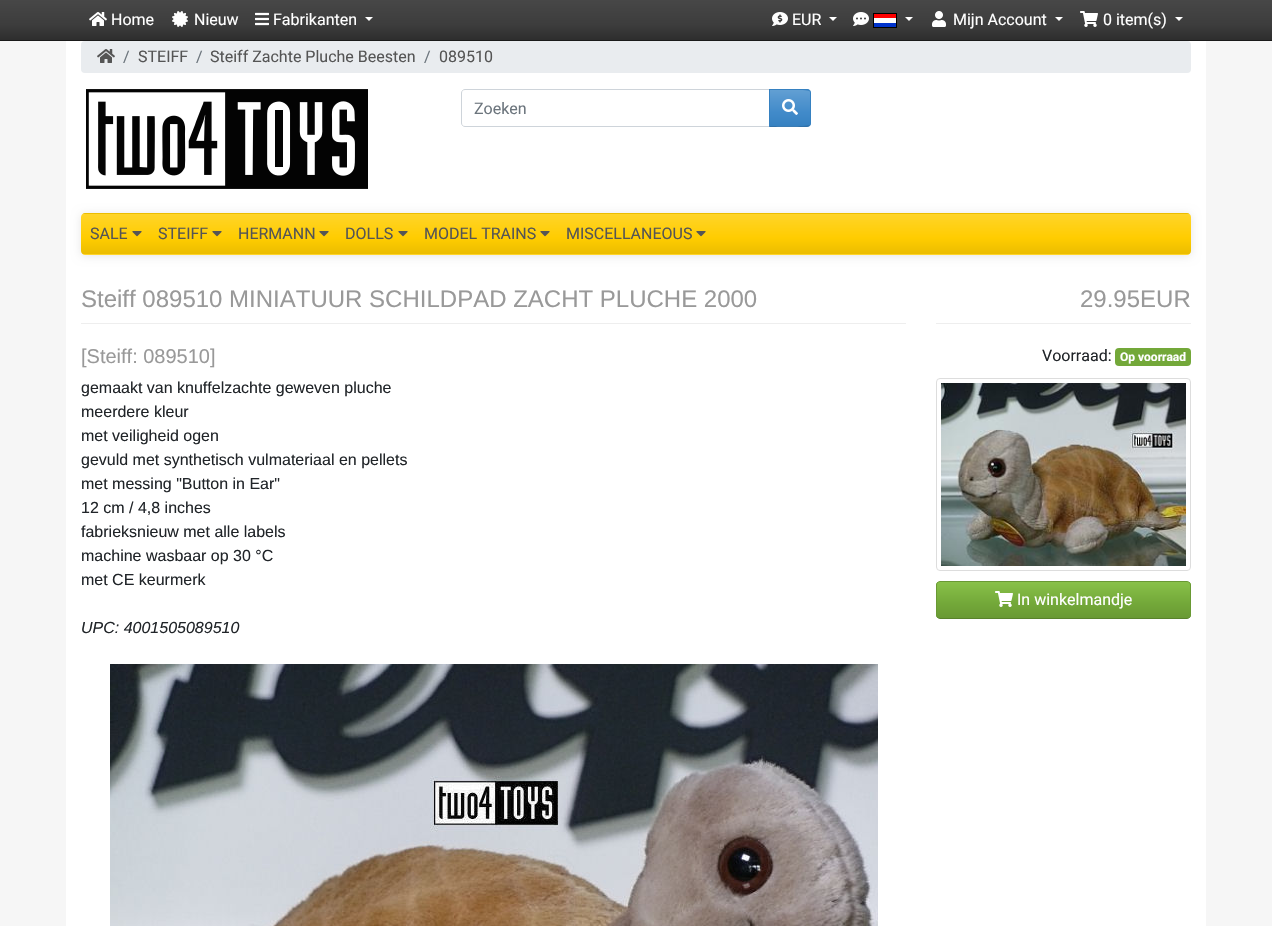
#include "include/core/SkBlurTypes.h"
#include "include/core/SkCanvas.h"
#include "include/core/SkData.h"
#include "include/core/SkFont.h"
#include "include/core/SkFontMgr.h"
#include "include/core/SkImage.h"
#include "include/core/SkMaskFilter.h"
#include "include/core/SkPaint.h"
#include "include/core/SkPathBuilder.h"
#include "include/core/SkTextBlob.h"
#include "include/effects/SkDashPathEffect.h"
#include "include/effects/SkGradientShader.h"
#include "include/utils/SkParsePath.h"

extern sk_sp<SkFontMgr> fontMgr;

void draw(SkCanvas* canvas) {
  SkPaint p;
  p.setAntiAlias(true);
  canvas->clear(SkColorSetRGB(246, 246, 246));
  {
    const SkColor colors[] = {SkColorSetRGB(71, 71, 71), SkColorSetRGB(61, 61, 61), SkColorSetRGB(46, 46, 46)};
    const float stops[] = {0, 0.6f, 1};
    const SkPoint ends[] = {{636, 0}, {636, 40}};
    p.setShader(SkGradientShader::MakeLinear(ends, colors, stops, 3, SkTileMode::kClamp));
    p.setAlpha(255);
  }
  canvas->drawRect(SkRect::MakeLTRB(0, 0, 1272, 40), p);
  p.setShader(nullptr);
  p.setColor(SkColorSetRGB(26, 26, 26));
  canvas->drawRect(SkRect::MakeLTRB(0, 40, 1272, 41), p);
  canvas->drawImageRect(SkImages::DeferredFromEncodedData(SkData::MakeFromFileName("images/1.png")), SkRect::MakeLTRB(89, 12, 107, 26), SkSamplingOptions());
  canvas->drawImageRect(SkImages::DeferredFromEncodedData(SkData::MakeFromFileName("images/2.png")), SkRect::MakeLTRB(172, 11, 188, 27), SkSamplingOptions());
  canvas->drawImageRect(SkImages::DeferredFromEncodedData(SkData::MakeFromFileName("images/3.png")), SkRect::MakeLTRB(255, 12, 269, 26), SkSamplingOptions());
  p.setColor(SK_ColorWHITE);
  canvas->drawPath(SkPathBuilder().moveTo(365, 17).lineTo(373, 17).lineTo(369, 21).close().detach(), p);
  canvas->drawImageRect(SkImages::DeferredFromEncodedData(SkData::MakeFromFileName("images/4.png")), SkRect::MakeLTRB(772, 12, 788, 26), SkSamplingOptions());
  canvas->drawPath(SkPathBuilder().moveTo(829, 17).lineTo(837, 17).lineTo(833, 21).close().detach(), p);
  canvas->drawImageRect(SkImages::DeferredFromEncodedData(SkData::MakeFromFileName("images/5.png")), SkRect::MakeLTRB(853, 12, 869, 26), SkSamplingOptions());
  canvas->drawImageRect(SkImages::DeferredFromEncodedData(SkData::MakeFromFileName("images/6.png")), SkRect::MakeLTRB(873, 13, 897, 28), SkSamplingOptions());
  canvas->drawPath(SkPathBuilder().moveTo(905, 17).lineTo(913, 17).lineTo(909, 21).close().detach(), p);
  canvas->drawImageRect(SkImages::DeferredFromEncodedData(SkData::MakeFromFileName("images/7.png")), SkRect::MakeLTRB(932, 11, 946, 27), SkSamplingOptions());
  canvas->drawPath(SkPathBuilder().moveTo(1055, 17).lineTo(1063, 17).lineTo(1059, 21).close().detach(), p);
  canvas->drawImageRect(SkImages::DeferredFromEncodedData(SkData::MakeFromFileName("images/8.png")), SkRect::MakeLTRB(1080, 11, 1098, 27), SkSamplingOptions());
  canvas->drawPath(SkPathBuilder().moveTo(1175, 17).lineTo(1183, 17).lineTo(1179, 21).close().detach(), p);
  canvas->drawRect(SkRect::MakeLTRB(66, 41, 1206, 926), p);
  p.setColor(SkColorSetRGB(233, 236, 239));
  canvas->drawRoundRect(SkRect::MakeLTRB(81, 41, 1191, 73), 4, 4, p);
  canvas->drawImageRect(SkImages::DeferredFromEncodedData(SkData::MakeFromFileName("images/9.png")), SkRect::MakeLTRB(97, 49, 115, 63), SkSamplingOptions());
  canvas->drawImageRect(SkImages::DeferredFromEncodedData(SkData::MakeFromFileName("images/10.png")), SkRect::MakeLTRB(86, 89, 368, 189), SkSamplingOptions());
  p.setStyle(SkPaint::kStroke_Style);
  p.setStrokeWidth(1);
  p.setColor(SkColorSetRGB(206, 212, 218));
  canvas->drawPath(SkPathBuilder().moveTo(465, 89.5f).lineTo(769.5f, 89.5f).lineTo(769.5f, 126.5f).lineTo(465, 126.5f).cubicTo(463, 126.5f, 461.5f, 125, 461.5f, 123).lineTo(461.5f, 93).cubicTo(461.5f, 91, 463, 89.5f, 465, 89.5f).close().detach(), p);
  canvas->save();
  canvas->clipPath(SkPathBuilder().moveTo(769, 89).lineTo(807, 89).cubicTo(809, 89, 811, 91, 811, 93).lineTo(811, 123).cubicTo(811, 125, 809, 127, 807, 127).lineTo(769, 127).close().detach(), true);
  p.setStyle(SkPaint::kFill_Style);
  {
    const SkColor colors[] = {SkColorSetRGB(98, 159, 211), SkColorSetRGB(66, 139, 202), SkColorSetRGB(54, 129, 193)};
    const float stops[] = {0, 0.6f, 1};
    const SkPoint ends[] = {{790, 54}, {790, 90}};
    p.setShader(SkGradientShader::MakeLinear(ends, colors, stops, 3, SkTileMode::kClamp));
    p.setAlpha(255);
  }
  canvas->drawRect(SkRect::MakeLTRB(769, 89, 811, 90), p);
  {
    const SkColor colors[] = {SkColorSetRGB(98, 159, 211), SkColorSetRGB(66, 139, 202), SkColorSetRGB(54, 129, 193)};
    const float stops[] = {0, 0.6f, 1};
    const SkPoint ends[] = {{790, 90}, {790, 126}};
    p.setShader(SkGradientShader::MakeLinear(ends, colors, stops, 3, SkTileMode::kClamp));
    p.setAlpha(255);
  }
  canvas->drawRect(SkRect::MakeLTRB(770, 90, 811, 126), p);
  {
    const SkColor colors[] = {SkColorSetRGB(98, 159, 211), SkColorSetRGB(66, 139, 202), SkColorSetRGB(54, 129, 193)};
    const float stops[] = {0, 0.6f, 1};
    const SkPoint ends[] = {{790, 126}, {790, 162}};
    p.setShader(SkGradientShader::MakeLinear(ends, colors, stops, 3, SkTileMode::kClamp));
    p.setAlpha(255);
  }
  canvas->drawRect(SkRect::MakeLTRB(769, 126, 811, 127), p);
  canvas->restore();
  p.setShader(nullptr);
  p.setColor(SkColorSetRGB(54, 129, 193));
  canvas->drawPath(SkPathBuilder().moveTo(769, 89).lineTo(770, 90).cubicTo(775, 90, 807, 89, 809, 91).lineTo(810, 90).lineTo(807, 89).close().detach(), p);
  canvas->drawPath(SkPathBuilder().moveTo(811, 123).lineTo(811, 93).cubicTo(811, 92, 810.5f, 91, 810, 90).lineTo(809, 91).cubicTo(810, 91, 810, 92, 810, 93).lineTo(810, 123).cubicTo(810, 124, 810, 125, 809, 125).lineTo(810, 126).cubicTo(810.5f, 125, 811, 124, 811, 123).close().detach(), p);
  p.setColor(SkColorSetRGB(48, 113, 169));
  canvas->drawPath(SkPathBuilder().moveTo(807, 127).lineTo(810, 126).lineTo(809, 125).cubicTo(807, 127, 775, 126, 770, 126).lineTo(769, 127).close().detach(), p);
  p.setColor(SkColorSetRGB(54, 129, 193));
  canvas->drawPath(SkPathBuilder().moveTo(769, 89).lineTo(769, 127).lineTo(770, 126).lineTo(770, 90).close().detach(), p);
  canvas->drawImageRect(SkImages::DeferredFromEncodedData(SkData::MakeFromFileName("images/11.png")), SkRect::MakeLTRB(782, 99, 798, 115), SkSamplingOptions());
  p.setColor(SkColorSetARGB(26, 0, 0, 0));
  p.setMaskFilter(SkMaskFilter::MakeBlur(kNormal_SkBlurStyle, 5));
  canvas->drawRoundRect(SkRect::MakeLTRB(81, 214, 1191, 256), 4, 4, p);
  p.setMaskFilter(nullptr);
  canvas->save();
  canvas->clipPath(SkPathBuilder().moveTo(85, 213).lineTo(1187, 213).cubicTo(1189, 213, 1191, 215, 1191, 217).lineTo(1191, 251).cubicTo(1191, 253, 1189, 255, 1187, 255).lineTo(85, 255).cubicTo(83, 255, 81, 253, 81, 251).lineTo(81, 217).cubicTo(81, 215, 83, 213, 85, 213).close().detach(), true);
  {
    const SkColor colors[] = {SkColorSetRGB(255, 212, 41), SkColorSetRGB(255, 204, 0), SkColorSetRGB(235, 188, 0)};
    const float stops[] = {0, 0.6f, 1};
    const SkPoint ends[] = {{636, 174}, {636, 214}};
    p.setShader(SkGradientShader::MakeLinear(ends, colors, stops, 3, SkTileMode::kClamp));
    p.setAlpha(255);
  }
  canvas->drawRect(SkRect::MakeLTRB(81, 213, 1191, 214), p);
  {
    const SkColor colors[] = {SkColorSetRGB(255, 212, 41), SkColorSetRGB(255, 204, 0), SkColorSetRGB(235, 188, 0)};
    const float stops[] = {0, 0.6f, 1};
    const SkPoint ends[] = {{636, 214}, {636, 254}};
    p.setShader(SkGradientShader::MakeLinear(ends, colors, stops, 3, SkTileMode::kClamp));
    p.setAlpha(255);
  }
  canvas->drawRect(SkRect::MakeLTRB(81, 214, 1191, 254), p);
  {
    const SkColor colors[] = {SkColorSetRGB(255, 212, 41), SkColorSetRGB(255, 204, 0), SkColorSetRGB(235, 188, 0)};
    const float stops[] = {0, 0.6f, 1};
    const SkPoint ends[] = {{636, 254}, {636, 294}};
    p.setShader(SkGradientShader::MakeLinear(ends, colors, stops, 3, SkTileMode::kClamp));
    p.setAlpha(255);
  }
  canvas->drawRect(SkRect::MakeLTRB(81, 254, 1191, 255), p);
  canvas->restore();
  canvas->drawImageRect(SkImages::DeferredFromEncodedData(SkData::MakeFromFileName("images/12.png")), SkRect::MakeLTRB(132, 231, 142, 237), SkSamplingOptions());
  canvas->drawImageRect(SkImages::DeferredFromEncodedData(SkData::MakeFromFileName("images/12.png")), SkRect::MakeLTRB(212, 231, 222, 237), SkSamplingOptions());
  canvas->drawImageRect(SkImages::DeferredFromEncodedData(SkData::MakeFromFileName("images/12.png")), SkRect::MakeLTRB(319, 231, 329, 237), SkSamplingOptions());
  canvas->drawImageRect(SkImages::DeferredFromEncodedData(SkData::MakeFromFileName("images/12.png")), SkRect::MakeLTRB(398, 231, 408, 237), SkSamplingOptions());
  canvas->drawImageRect(SkImages::DeferredFromEncodedData(SkData::MakeFromFileName("images/12.png")), SkRect::MakeLTRB(540, 231, 550, 237), SkSamplingOptions());
  canvas->drawImageRect(SkImages::DeferredFromEncodedData(SkData::MakeFromFileName("images/12.png")), SkRect::MakeLTRB(696, 231, 706, 237), SkSamplingOptions());
  p.setShader(nullptr);
  p.setColor(SkColorSetRGB(238, 238, 238));
  canvas->drawRect(SkRect::MakeLTRB(81, 323, 906, 324), p);
  canvas->drawRect(SkRect::MakeLTRB(936, 323, 1191, 324), p);
  p.setColor(SkColorSetRGB(115, 168, 57));
  canvas->drawRoundRect(SkRect::MakeLTRB(1115, 348, 1191, 366), 4, 4, p);
  p.setStyle(SkPaint::kStroke_Style);
  p.setColor(SkColorSetRGB(221, 221, 221));
  canvas->drawRoundRect(SkRect::MakeLTRB(936.5f, 378.5f, 1190.5f, 570.5f), 3.5f, 3.5f, p);
  canvas->drawImageRect(SkImages::DeferredFromEncodedData(SkData::MakeFromFileName("images/13.png")), SkRect::MakeLTRB(941, 383, 1186, 566), SkSamplingOptions());
  canvas->save();
  canvas->clipPath(SkPathBuilder().moveTo(940, 581).lineTo(1187, 581).cubicTo(1189, 581, 1191, 583, 1191, 585).lineTo(1191, 615).cubicTo(1191, 617, 1189, 619, 1187, 619).lineTo(940, 619).cubicTo(938, 619, 936, 617, 936, 615).lineTo(936, 585).cubicTo(936, 583, 938, 581, 940, 581).close().detach(), true);
  p.setStyle(SkPaint::kFill_Style);
  {
    const SkColor colors[] = {SkColorSetRGB(136, 193, 73), SkColorSetRGB(115, 168, 57), SkColorSetRGB(105, 153, 52)};
    const float stops[] = {0, 0.6f, 1};
    const SkPoint ends[] = {{1064, 582}, {1064, 618}};
    p.setShader(SkGradientShader::MakeLinear(ends, colors, stops, 3, SkTileMode::kClamp));
    p.setAlpha(255);
  }
  canvas->drawRect(SkRect::MakeLTRB(936, 582, 1191, 618), p);
  canvas->restore();
  p.setStyle(SkPaint::kStroke_Style);
  p.setShader(nullptr);
  p.setColor(SkColorSetRGB(89, 130, 44));
  canvas->drawPath(SkPathBuilder().moveTo(1189.5f, 617.5f).cubicTo(1189, 618, 1188, 618.5f, 1187, 618.5f).lineTo(940, 618.5f).cubicTo(939, 618.5f, 938, 618, 937.5f, 617.5f).detach(), p);
  p.setColor(SkColorSetRGB(105, 153, 52));
  canvas->drawPath(SkPathBuilder().moveTo(937.5f, 617.5f).cubicTo(937, 617, 936.5f, 616, 936.5f, 615).lineTo(936.5f, 585).cubicTo(936.5f, 584, 937, 583, 937.5f, 582.5f).cubicTo(938, 582, 939, 581.5f, 940, 581.5f).lineTo(1187, 581.5f).cubicTo(1188, 581.5f, 1189, 582, 1189.5f, 582.5f).cubicTo(1190, 583, 1190.5f, 584, 1190.5f, 585).lineTo(1190.5f, 615).cubicTo(1190.5f, 616, 1190, 617, 1189.5f, 617.5f).detach(), p);
  canvas->drawImageRect(SkImages::DeferredFromEncodedData(SkData::MakeFromFileName("images/14.png")), SkRect::MakeLTRB(995, 591, 1013, 607), SkSamplingOptions());
  canvas->drawImageRect(SkImages::DeferredFromEncodedData(SkData::MakeFromFileName("images/15.png")), SkRect::MakeLTRB(110, 664, 878, 926), SkSamplingOptions());
  SkFont font1(fontMgr->matchFamilyStyle("Roboto", SkFontStyle::Normal()), 16);
  font1.setSubpixel(true);
  p.setStyle(SkPaint::kFill_Style);
  p.setColor(SK_ColorWHITE);
  canvas->drawString("Home", 111, 25, font1, p);
  canvas->drawString("Nieuw", 194, 25, font1, p);
  canvas->drawString("Fabrikanten", 273, 25, font1, p);
  canvas->drawString("EUR", 792, 25, font1, p);
  canvas->drawString("Mijn Account", 953, 25, font1, p);
  canvas->drawString("0 item(s)", 1103, 25, font1, p);
  p.setColor(SkColorSetRGB(108, 117, 125));
  canvas->drawString("/", 123, 62, font1, p);
  p.setColor(SkColorSetRGB(85, 85, 85));
  canvas->drawString("STEIFF", 138, 62, font1, p);
  p.setColor(SkColorSetRGB(108, 117, 125));
  canvas->drawString("/", 196, 62, font1, p);
  p.setColor(SkColorSetRGB(85, 85, 85));
  canvas->drawString("Steiff Zachte Pluche Beesten", 210, 62, font1, p);
  p.setColor(SkColorSetRGB(108, 117, 125));
  canvas->drawString("/", 424, 62, font1, p);
  p.setColor(SkColorSetRGB(85, 85, 85));
  canvas->drawString("089510", 439, 62, font1, p);
  p.setColor(SkColorSetRGB(108, 117, 125));
  canvas->drawString("Zoeken", 474, 114, font1, p);
  p.setColor(SkColorSetRGB(85, 85, 85));
  canvas->drawString("SALE", 90, 239, font1, p);
  canvas->drawString("STEIFF", 158, 239, font1, p);
  canvas->drawString("HERMANN", 238, 239, font1, p);
  canvas->drawString("DOLLS", 345, 239, font1, p);
  canvas->drawString("MODEL TRAINS", 424, 239, font1, p);
  canvas->drawString("MISCELLANEOUS", 566, 239, font1, p);
  SkFont font2(fontMgr->matchFamilyStyle("Liberation Sans", SkFontStyle::Normal()), 24);
  font2.setSubpixel(true);
  p.setColor(SkColorSetRGB(153, 153, 153));
  canvas->drawString("Steiff 089510 MINIATUUR SCHILDPAD ZACHT PLUCHE 2000", 81, 307, font2, p);
  canvas->drawString("29.95EUR", 1080, 307, font2, p);
  p.setColor(SkColorSetRGB(33, 37, 41));
  canvas->drawString("Voorraad:", 1042, 361, font1, p);
  SkFont font3(fontMgr->matchFamilyStyle("Roboto", SkFontStyle::Bold()), 12);
  font3.setSubpixel(true);
  p.setColor(SK_ColorWHITE);
  canvas->drawString("Op voorraad", 1120, 361, font3, p);
  canvas->drawString("In winkelmandje", 1017, 605, font1, p);
  SkFont font4(fontMgr->matchFamilyStyle("Liberation Sans", SkFontStyle::Normal()), 20);
  font4.setSubpixel(true);
  p.setColor(SkColorSetRGB(153, 153, 153));
  canvas->drawString("[Steiff: 089510]", 81, 363, font4, p);
  SkFont font5(fontMgr->matchFamilyStyle("Liberation Sans", SkFontStyle::Normal()), 16);
  font5.setSubpixel(true);
  p.setColor(SkColorSetRGB(33, 37, 41));
  canvas->drawString("gemaakt van knuffelzachte geweven pluche", 81, 393, font5, p);
  canvas->drawString("meerdere kleur", 81, 417, font5, p);
  canvas->drawString("met veiligheid ogen", 81, 441, font5, p);
  canvas->drawString("gevuld met synthetisch vulmateriaal en pellets", 81, 465, font5, p);
  canvas->drawString("met messing \"Button in Ear\"", 81, 489, font5, p);
  canvas->drawString("12 cm / 4,8 inches", 81, 513, font5, p);
  canvas->drawString("fabrieksnieuw met alle labels", 81, 537, font5, p);
  canvas->drawString("machine wasbaar op 30 °C", 81, 561, font5, p);
  canvas->drawString("met CE keurmerk", 81, 585, font5, p);
  SkFont font6(fontMgr->matchFamilyStyle("Liberation Sans", SkFontStyle::Italic()), 16);
  font6.setSubpixel(true);
  canvas->drawString("UPC: 4001505089510", 81, 633, font6, p);
}
